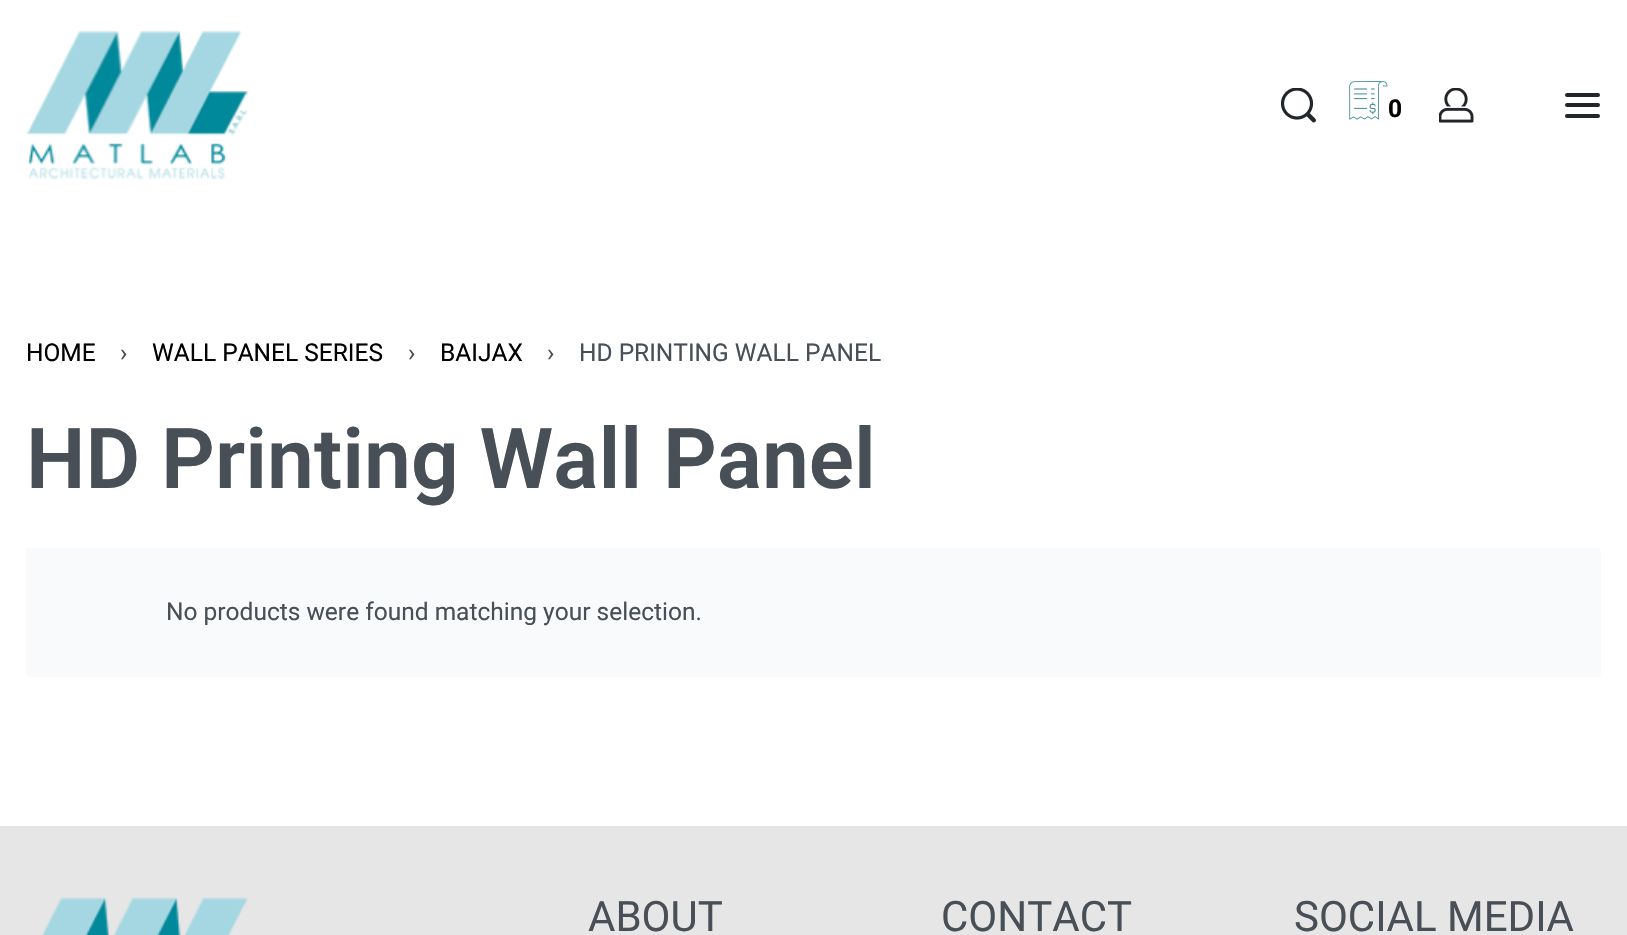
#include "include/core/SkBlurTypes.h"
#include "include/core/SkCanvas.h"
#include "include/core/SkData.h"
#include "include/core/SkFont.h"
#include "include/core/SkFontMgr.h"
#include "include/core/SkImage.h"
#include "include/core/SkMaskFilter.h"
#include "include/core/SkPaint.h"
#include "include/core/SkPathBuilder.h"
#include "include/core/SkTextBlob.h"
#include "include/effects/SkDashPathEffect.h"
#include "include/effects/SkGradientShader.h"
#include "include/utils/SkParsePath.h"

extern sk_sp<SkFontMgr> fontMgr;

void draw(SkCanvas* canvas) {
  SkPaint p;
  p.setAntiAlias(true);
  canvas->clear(SK_ColorWHITE);
  canvas->drawImageRect(SkImages::DeferredFromEncodedData(SkData::MakeFromFileName("images/1.png")), SkRect::MakeLTRB(26, 30, 249, 180), SkSamplingOptions());
  canvas->drawImageRect(SkImages::DeferredFromEncodedData(SkData::MakeFromFileName("images/2.png")), SkRect::MakeLTRB(1281, 88, 1316, 123), SkSamplingOptions());
  canvas->drawImageRect(SkImages::DeferredFromEncodedData(SkData::MakeFromFileName("images/3.png")), SkRect::MakeLTRB(1349, 81, 1388, 120), SkSamplingOptions());
  canvas->drawImageRect(SkImages::DeferredFromEncodedData(SkData::MakeFromFileName("images/4.png")), SkRect::MakeLTRB(1439, 88, 1474, 123), SkSamplingOptions());
  p.setColor(SkColorSetRGB(34, 38, 42));
  canvas->drawRoundRect(SkRect::MakeLTRB(1565, 93, 1600, 97), 2, 2, p);
  canvas->drawRoundRect(SkRect::MakeLTRB(1565, 103, 1600, 107), 2, 2, p);
  canvas->drawRoundRect(SkRect::MakeLTRB(1565, 114, 1600, 118), 2, 2, p);
  p.setColor(SkColorSetRGB(249, 250, 251));
  canvas->drawRoundRect(SkRect::MakeLTRB(26, 548, 1601, 677), 4, 4, p);
  p.setColor(SkColorSetRGB(230, 230, 230));
  canvas->drawRect(SkRect::MakeLTRB(0, 826, 1627, 935), p);
  canvas->drawImageRect(SkImages::DeferredFromEncodedData(SkData::MakeFromFileName("images/5.png")), SkRect::MakeLTRB(41, 897, 248, 935), SkSamplingOptions());
  SkFont font1(fontMgr->matchFamilyStyle("Roboto", SkFontStyle::Bold()), 24.5f);
  font1.setSubpixel(true);
  p.setColor(SK_ColorBLACK);
  canvas->drawString("0", 1388, 117, font1, p);
  SkFont font2(fontMgr->matchFamilyStyle("Roboto", SkFontStyle::Normal()), 24.5f);
  font2.setSubpixel(true);
  canvas->drawString("HOME", 26, 361, font2, p);
  p.setColor(SkColorSetRGB(72, 79, 86));
  canvas->drawString("›", 120, 361, font2, p);
  p.setColor(SK_ColorBLACK);
  canvas->drawString("WALL PANEL SERIES", 152, 361, font2, p);
  p.setColor(SkColorSetRGB(72, 79, 86));
  canvas->drawString("›", 408, 361, font2, p);
  p.setColor(SK_ColorBLACK);
  canvas->drawString("BAIJAX", 440, 361, font2, p);
  p.setColor(SkColorSetRGB(72, 79, 86));
  canvas->drawString("›", 547, 361, font2, p);
  canvas->drawString("HD PRINTING WALL PANEL", 579, 361, font2, p);
  SkFont font3(fontMgr->matchFamilyStyle("Roboto", SkFontStyle(600, SkFontStyle::kNormal_Width, SkFontStyle::kUpright_Slant)), 84);
  font3.setSubpixel(true);
  canvas->drawString("HD Printing Wall Panel", 26, 488, font3, p);
  canvas->drawString("No products were found matching your selection.", 166, 620, font2, p);
  SkFont font4(fontMgr->matchFamilyStyle("Roboto", SkFontStyle::Normal()), 42);
  font4.setSubpixel(true);
  canvas->drawString("ABOUT", 588, 931, font4, p);
  canvas->drawString("CONTACT", 941, 931, font4, p);
  canvas->drawString("SOCIAL MEDIA", 1294, 931, font4, p);
}
